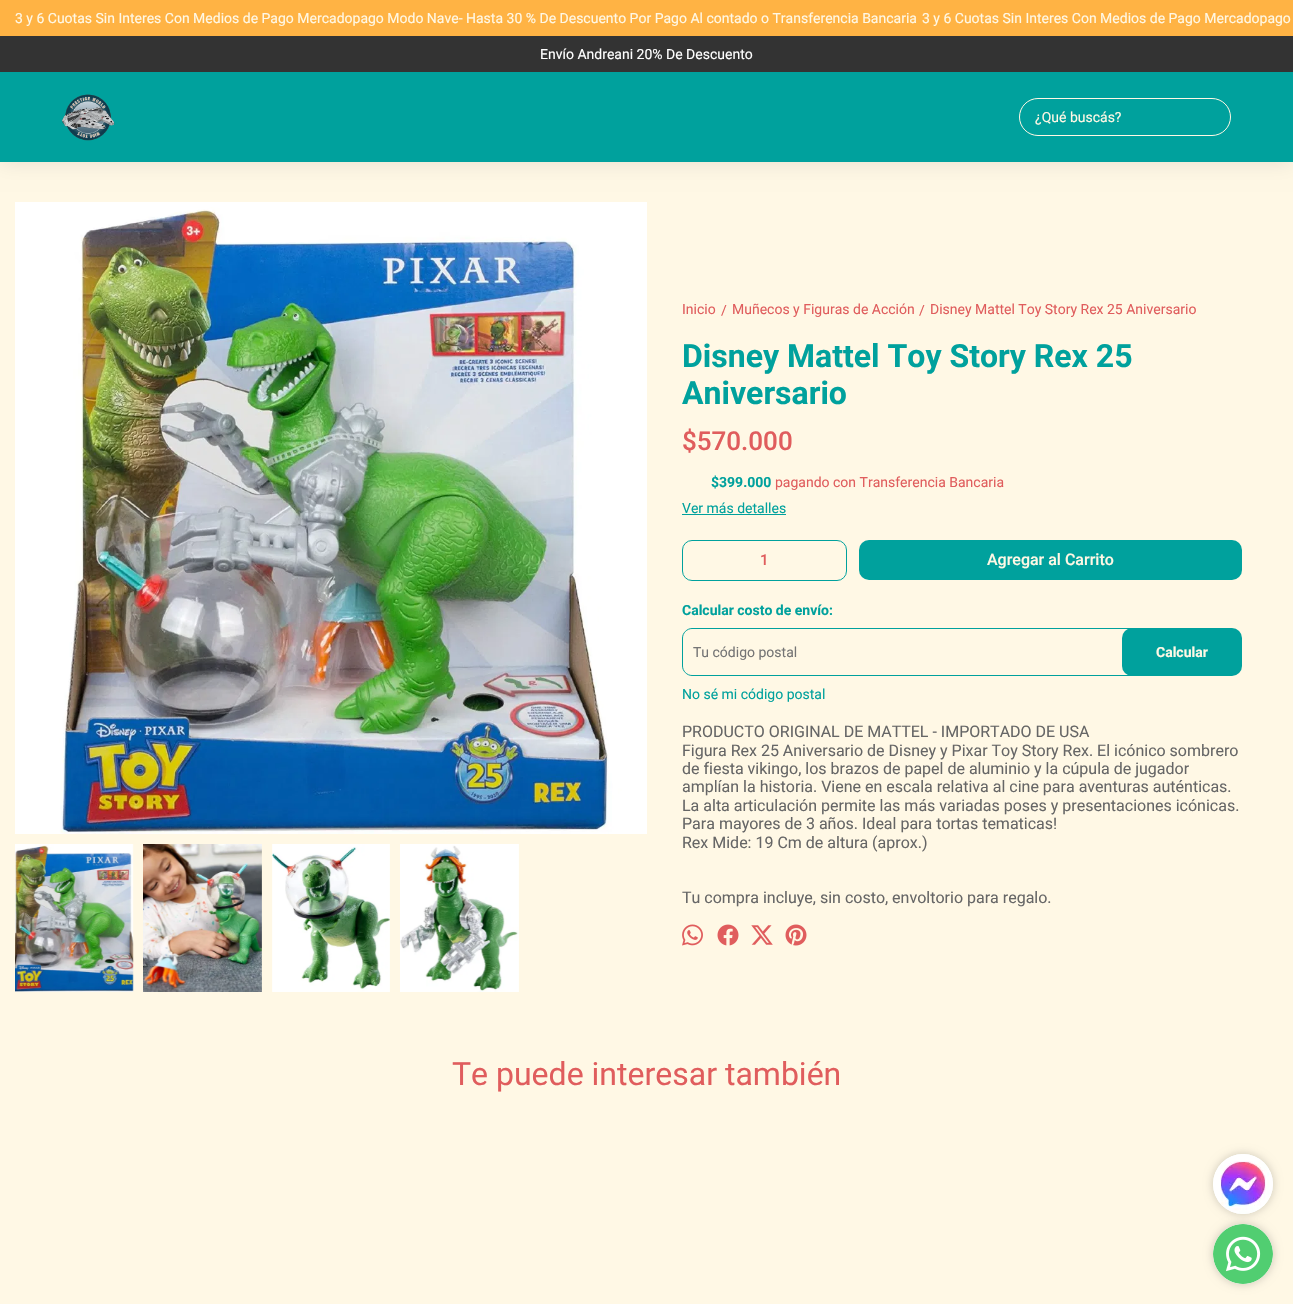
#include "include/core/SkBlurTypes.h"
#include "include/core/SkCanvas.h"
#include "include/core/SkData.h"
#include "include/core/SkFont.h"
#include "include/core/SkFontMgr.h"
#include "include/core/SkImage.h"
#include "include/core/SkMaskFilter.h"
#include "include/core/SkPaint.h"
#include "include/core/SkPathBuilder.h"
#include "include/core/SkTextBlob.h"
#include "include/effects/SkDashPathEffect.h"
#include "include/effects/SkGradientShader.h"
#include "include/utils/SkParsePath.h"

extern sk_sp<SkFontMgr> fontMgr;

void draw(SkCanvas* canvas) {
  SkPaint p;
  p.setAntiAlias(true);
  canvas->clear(SkColorSetRGB(255, 248, 229));
  p.setColor(SkColorSetARGB(26, 0, 0, 0));
  p.setMaskFilter(SkMaskFilter::MakeBlur(kNormal_SkBlurStyle, 10));
  canvas->drawRect(SkRect::MakeLTRB(0, 0, 1293, 162), p);
  p.setMaskFilter(nullptr);
  p.setColor(SkColorSetRGB(0, 161, 157));
  canvas->drawRect(SkRect::MakeLTRB(0, 72, 1293, 162), p);
  p.setColor(SkColorSetRGB(255, 179, 68));
  canvas->drawRect(SkRect::MakeLTRB(0, 0, 1293, 36), p);
  p.setColor(SkColorSetRGB(51, 51, 51));
  canvas->drawRect(SkRect::MakeLTRB(0, 36, 1293, 72), p);
  canvas->drawImageRect(SkImages::DeferredFromEncodedData(SkData::MakeFromFileName("images/1.png")), SkRect::MakeLTRB(62, 94, 115, 141), SkSamplingOptions());
  p.setStyle(SkPaint::kStroke_Style);
  p.setStrokeWidth(1);
  p.setColor(SkColorSetRGB(255, 248, 229));
  canvas->drawRoundRect(SkRect::MakeLTRB(1019.5f, 98.5f, 1230.5f, 135.5f), 18.5f, 18.5f, p);
  canvas->drawImageRect(SkImages::DeferredFromEncodedData(SkData::MakeFromFileName("images/2.png")), SkRect::MakeLTRB(15, 202, 647, 834), SkSamplingOptions());
  canvas->drawImageRect(SkImages::DeferredFromEncodedData(SkData::MakeFromFileName("images/3.png")), SkRect::MakeLTRB(15, 844, 134, 992), SkSamplingOptions());
  canvas->drawImageRect(SkImages::DeferredFromEncodedData(SkData::MakeFromFileName("images/4.png")), SkRect::MakeLTRB(143, 844, 262, 992), SkSamplingOptions());
  canvas->drawImageRect(SkImages::DeferredFromEncodedData(SkData::MakeFromFileName("images/5.png")), SkRect::MakeLTRB(272, 844, 390, 992), SkSamplingOptions());
  canvas->drawImageRect(SkImages::DeferredFromEncodedData(SkData::MakeFromFileName("images/6.png")), SkRect::MakeLTRB(400, 844, 519, 992), SkSamplingOptions());
  p.setStyle(SkPaint::kFill_Style);
  p.setColor(SkColorSetRGB(0, 161, 157));
  canvas->drawRect(SkRect::MakeLTRB(682, 514, 786, 515), p);
  p.setStyle(SkPaint::kStroke_Style);
  canvas->drawRoundRect(SkRect::MakeLTRB(682.5f, 540.5f, 846.5f, 580.5f), 9.5f, 9.5f, p);
  p.setStyle(SkPaint::kFill_Style);
  canvas->drawRoundRect(SkRect::MakeLTRB(859, 540, 1242, 580), 10, 10, p);
  p.setStyle(SkPaint::kStroke_Style);
  canvas->drawPath(SkPathBuilder().moveTo(692, 628.5f).lineTo(1133.5f, 628.5f).lineTo(1133.5f, 675.5f).lineTo(692, 675.5f).cubicTo(687, 675.5f, 682.5f, 671, 682.5f, 666).lineTo(682.5f, 638).cubicTo(682.5f, 633, 687, 628.5f, 692, 628.5f).close().detach(), p);
  p.setStyle(SkPaint::kFill_Style);
  canvas->drawRoundRect(SkRect::MakeLTRB(1122, 628, 1242, 676), 10, 10, p);
  canvas->drawImageRect(SkImages::DeferredFromEncodedData(SkData::MakeFromFileName("images/7.png")), SkRect::MakeLTRB(682, 924, 703, 946), SkSamplingOptions());
  canvas->drawImageRect(SkImages::DeferredFromEncodedData(SkData::MakeFromFileName("images/8.png")), SkRect::MakeLTRB(717, 924, 739, 946), SkSamplingOptions());
  canvas->drawImageRect(SkImages::DeferredFromEncodedData(SkData::MakeFromFileName("images/9.png")), SkRect::MakeLTRB(751, 925, 773, 945), SkSamplingOptions());
  canvas->drawImageRect(SkImages::DeferredFromEncodedData(SkData::MakeFromFileName("images/10.png")), SkRect::MakeLTRB(785, 924, 807, 946), SkSamplingOptions());
  p.setColor(SkColorSetARGB(51, 0, 0, 0));
  p.setMaskFilter(SkMaskFilter::MakeBlur(kNormal_SkBlurStyle, 5));
  canvas->drawRoundRect(SkRect::MakeLTRB(1213, 1224, 1273, 1284), 30, 30, p);
  p.setMaskFilter(nullptr);
  p.setColor(SK_ColorWHITE);
  canvas->drawCircle(1243, 1254, 30, p);
  canvas->drawImageRect(SkImages::DeferredFromEncodedData(SkData::MakeFromFileName("images/12.png")), SkRect::MakeLTRB(1213, 1224, 1273, 1284), SkSamplingOptions());
  p.setColor(SkColorSetARGB(51, 0, 0, 0));
  p.setMaskFilter(SkMaskFilter::MakeBlur(kNormal_SkBlurStyle, 5));
  canvas->drawRoundRect(SkRect::MakeLTRB(1213, 1154, 1273, 1214), 30, 30, p);
  p.setMaskFilter(nullptr);
  p.setColor(SK_ColorWHITE);
  canvas->drawCircle(1243, 1184, 30, p);
  canvas->drawImageRect(SkImages::DeferredFromEncodedData(SkData::MakeFromFileName("images/11.png")), SkRect::MakeLTRB(1213, 1154, 1273, 1214), SkSamplingOptions());
  SkFont font1(fontMgr->matchFamilyStyle("Roboto", SkFontStyle::Normal()), 14);
  font1.setSubpixel(true);
  p.setColor(SkColorSetRGB(255, 248, 229));
  canvas->drawString("3 y 6 Cuotas Sin Interes Con Medios de Pago Mercadopago Modo Nave- Hasta 30 % De Descuento Por Pago Al contado o Transferencia Bancaria", 15, 23, font1, p);
  canvas->drawString("3 y 6 Cuotas Sin Interes Con Medios de Pago Mercadopago", 922, 23, font1, p);
  p.setColor(SK_ColorWHITE);
  canvas->drawString("Envío Andreani 20% De Descuento", 540, 59, font1, p);
  p.setColor(SkColorSetRGB(255, 248, 229));
  canvas->drawString("¿Qué buscás?", 1035, 122, font1, p);
  p.setColor(SkColorSetRGB(224, 93, 93));
  canvas->drawString("Inicio", 682, 314, font1, p);
  canvas->drawString("/", 721, 315, font1, p);
  canvas->drawString("Muñecos y Figuras de Acción", 732, 314, font1, p);
  canvas->drawString("/", 919, 315, font1, p);
  canvas->drawString("Disney Mattel Toy Story Rex 25 Aniversario", 930, 314, font1, p);
  SkFont font2(fontMgr->matchFamilyStyle("Roboto", SkFontStyle::Bold()), 32);
  font2.setSubpixel(true);
  p.setColor(SkColorSetRGB(0, 161, 157));
  canvas->drawString("Disney Mattel Toy Story Rex 25", 682, 367, font2, p);
  canvas->drawString("Aniversario", 682, 404, font2, p);
  SkFont font3(fontMgr->matchFamilyStyle("Roboto", SkFontStyle(500, SkFontStyle::kNormal_Width, SkFontStyle::kUpright_Slant)), 26);
  font3.setSubpixel(true);
  p.setColor(SkColorSetRGB(224, 93, 93));
  canvas->drawString("$570.000", 682, 450, font3, p);
  SkFont font4(fontMgr->matchFamilyStyle("Roboto", SkFontStyle::Bold()), 14);
  font4.setSubpixel(true);
  p.setColor(SkColorSetRGB(0, 161, 157));
  canvas->drawString("$399.000", 711, 487, font4, p);
  p.setColor(SkColorSetRGB(224, 93, 93));
  canvas->drawString("pagando con Transferencia Bancaria", 775, 487, font1, p);
  p.setColor(SkColorSetRGB(0, 161, 157));
  canvas->drawString("Ver más detalles", 682, 513, font1, p);
  SkFont font5(fontMgr->matchFamilyStyle("Roboto", SkFontStyle(500, SkFontStyle::kNormal_Width, SkFontStyle::kUpright_Slant)), 15);
  font5.setSubpixel(true);
  p.setColor(SkColorSetRGB(224, 93, 93));
  canvas->drawString("1", 760, 565, font5, p);
  SkFont font6(fontMgr->matchFamilyStyle("Roboto", SkFontStyle(500, SkFontStyle::kNormal_Width, SkFontStyle::kUpright_Slant)), 16);
  font6.setSubpixel(true);
  p.setColor(SkColorSetRGB(255, 248, 229));
  canvas->drawString("Agregar al Carrito", 987, 565, font6, p);
  p.setColor(SkColorSetRGB(0, 161, 157));
  canvas->drawString("Calcular costo de envío:", 682, 615, font4, p);
  p.setColor(SkColorSetRGB(117, 117, 117));
  canvas->drawString("Tu código postal", 693, 657, font1, p);
  p.setColor(SkColorSetRGB(255, 248, 229));
  canvas->drawString("Calcular", 1156, 657, font4, p);
  p.setColor(SkColorSetRGB(0, 161, 157));
  canvas->drawString("No sé mi código postal", 682, 699, font1, p);
  SkFont font7(fontMgr->matchFamilyStyle("Roboto", SkFontStyle::Normal()), 16);
  font7.setSubpixel(true);
  p.setColor(SkColorSetRGB(102, 102, 102));
  canvas->drawString("PRODUCTO ORIGINAL DE MATTEL - IMPORTADO DE USA", 682, 737, font7, p);
  canvas->drawString("Figura Rex 25 Aniversario de Disney y Pixar Toy Story Rex. El icónico sombrero", 682, 756, font7, p);
  canvas->drawString("de fiesta vikingo, los brazos de papel de aluminio y la cúpula de jugador", 682, 774, font7, p);
  canvas->drawString("amplían la historia. Viene en escala relativa al cine para aventuras auténticas.", 682, 792, font7, p);
  canvas->drawString("La alta articulación permite las más variadas poses y presentaciones icónicas.", 682, 811, font7, p);
  canvas->drawString("Para mayores de 3 años. Ideal para tortas tematicas!", 682, 829, font7, p);
  canvas->drawString("Rex Mide: 19 Cm de altura (aprox.)", 682, 848, font7, p);
  canvas->drawString("Tu compra incluye, sin costo, envoltorio para regalo.", 682, 903, font7, p);
  SkFont font8(fontMgr->matchFamilyStyle("Roboto", SkFontStyle::Normal()), 32);
  font8.setSubpixel(true);
  p.setColor(SkColorSetRGB(224, 93, 93));
  canvas->drawString("Te puede interesar también", 452, 1085, font8, p);
}
